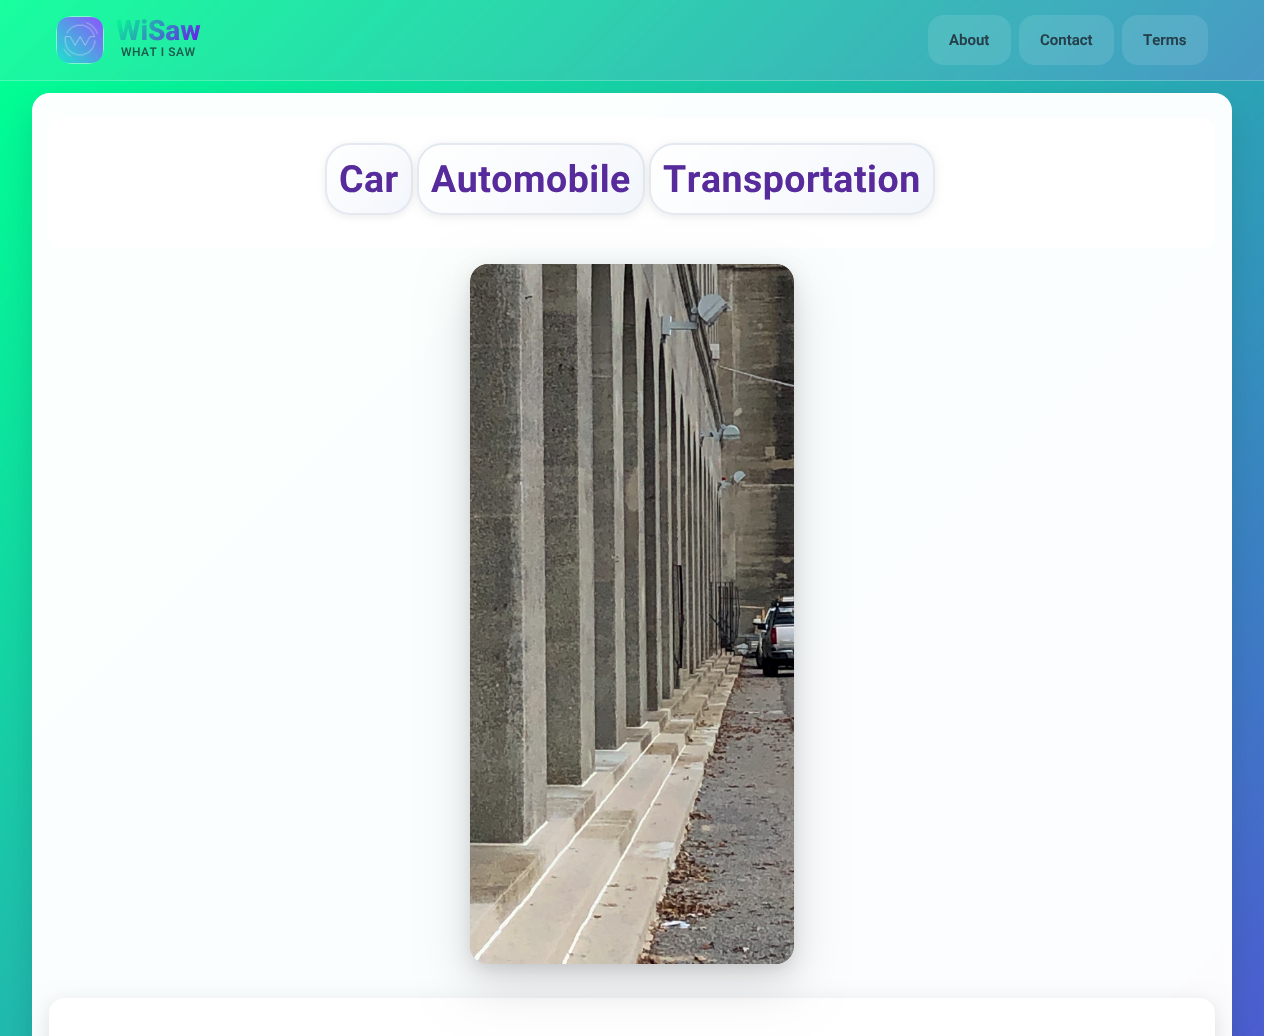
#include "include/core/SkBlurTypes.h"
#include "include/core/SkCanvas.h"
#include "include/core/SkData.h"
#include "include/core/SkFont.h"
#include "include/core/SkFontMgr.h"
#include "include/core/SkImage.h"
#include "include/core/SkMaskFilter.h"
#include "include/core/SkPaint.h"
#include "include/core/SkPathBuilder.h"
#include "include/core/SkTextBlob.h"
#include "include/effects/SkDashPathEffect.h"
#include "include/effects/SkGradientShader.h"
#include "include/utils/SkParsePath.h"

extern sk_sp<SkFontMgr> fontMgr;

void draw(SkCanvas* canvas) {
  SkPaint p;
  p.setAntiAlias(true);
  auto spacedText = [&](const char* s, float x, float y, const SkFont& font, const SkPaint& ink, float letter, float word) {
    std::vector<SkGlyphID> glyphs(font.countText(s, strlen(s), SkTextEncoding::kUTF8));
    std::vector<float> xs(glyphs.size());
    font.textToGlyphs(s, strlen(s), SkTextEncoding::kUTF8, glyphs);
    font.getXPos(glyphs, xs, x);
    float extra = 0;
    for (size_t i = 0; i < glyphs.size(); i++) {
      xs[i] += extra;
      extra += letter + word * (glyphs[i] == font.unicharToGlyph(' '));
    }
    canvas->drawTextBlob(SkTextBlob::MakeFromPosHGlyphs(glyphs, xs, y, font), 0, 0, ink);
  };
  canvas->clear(SK_ColorWHITE);
  {
    const SkColor colors[] = {SkColorSetRGB(0, 255, 148), SkColorSetRGB(114, 12, 240)};
    const float stops[] = {0, 1};
    const SkPoint ends[] = {{-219, 219}, {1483, 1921}};
    p.setShader(SkGradientShader::MakeLinear(ends, colors, stops, 2, SkTileMode::kClamp));
    p.setAlpha(255);
  }
  canvas->drawRect(SkRect::MakeLTRB(0, 0, 1264, 81), p);
  {
    const SkColor colors[] = {SkColorSetRGB(0, 255, 148), SkColorSetRGB(114, 12, 240)};
    const float stops[] = {0, 1};
    const SkPoint ends[] = {{-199, 280}, {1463, 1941}};
    p.setShader(SkGradientShader::MakeLinear(ends, colors, stops, 2, SkTileMode::kClamp));
    p.setAlpha(255);
  }
  canvas->drawRect(SkRect::MakeLTRB(0, 81, 1264, 1036), p);
  canvas->save();
  canvas->clipPath(SkPathBuilder(SkPathFillType::kEvenOdd).moveTo(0, 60).lineTo(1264, 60).lineTo(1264, 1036).lineTo(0, 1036).close().moveTo(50, 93).lineTo(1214, 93).cubicTo(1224, 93, 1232, 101, 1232, 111).lineTo(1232, 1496).cubicTo(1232, 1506, 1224, 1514, 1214, 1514).lineTo(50, 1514).cubicTo(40, 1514, 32, 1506, 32, 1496).lineTo(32, 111).cubicTo(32, 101, 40, 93, 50, 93).close().detach(), true);
  p.setShader(nullptr);
  p.setColor(SkColorSetARGB(31, 0, 0, 0));
  p.setMaskFilter(SkMaskFilter::MakeBlur(kNormal_SkBlurStyle, 16));
  canvas->drawRoundRect(SkRect::MakeLTRB(32, 109, 1232, 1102), 18, 18, p);
  p.setMaskFilter(nullptr);
  canvas->restore();
  p.setColor(SkColorSetARGB(26, 255, 255, 255));
  canvas->drawRect(SkRect::MakeLTRB(0, 0, 1264, 81), p);
  p.setColor(SkColorSetARGB(51, 255, 255, 255));
  canvas->drawRect(SkRect::MakeLTRB(0, 80, 1264, 81), p);
  {
    const SkColor colors[] = {SkColorSetARGB(26, 0, 255, 148), SkColorSetARGB(26, 114, 12, 240)};
    const float stops[] = {0, 1};
    const SkPoint ends[] = {{296, -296}, {968, 376}};
    p.setShader(SkGradientShader::MakeLinear(ends, colors, stops, 2, SkTileMode::kClamp));
    p.setAlpha(255);
  }
  canvas->drawRect(SkRect::MakeLTRB(0, 0, 1264, 80), p);
  p.setShader(nullptr);
  p.setColor(SkColorSetARGB(51, 255, 255, 255));
  canvas->drawRoundRect(SkRect::MakeLTRB(56, 16, 104, 64), 16, 16, p);
  p.setStyle(SkPaint::kStroke_Style);
  p.setStrokeWidth(1);
  p.setColor(SkColorSetARGB(77, 255, 255, 255));
  canvas->drawRoundRect(SkRect::MakeLTRB(56.5f, 16.5f, 103.5f, 63.5f), 15.5f, 15.5f, p);
  canvas->drawImageRect(SkImages::DeferredFromEncodedData(SkData::MakeFromFileName("images/1.png")), SkRect::MakeLTRB(57, 17, 103, 63), SkSamplingOptions());
  p.setStyle(SkPaint::kFill_Style);
  p.setColor(SkColorSetARGB(26, 255, 255, 255));
  canvas->drawRoundRect(SkRect::MakeLTRB(928, 15, 1011, 65), 16, 16, p);
  canvas->drawRoundRect(SkRect::MakeLTRB(1019, 15, 1114, 65), 16, 16, p);
  canvas->drawRoundRect(SkRect::MakeLTRB(1122, 15, 1208, 65), 16, 16, p);
  p.setColor(SkColorSetARGB(250, 255, 255, 255));
  canvas->drawRoundRect(SkRect::MakeLTRB(32, 93, 1232, 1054), 18, 18, p);
  p.setStyle(SkPaint::kStroke_Style);
  p.setColor(SkColorSetARGB(102, 255, 255, 255));
  canvas->drawRoundRect(SkRect::MakeLTRB(32.5f, 93.5f, 1231.5f, 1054.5f), 17.5f, 17.5f, p);
  p.setStyle(SkPaint::kFill_Style);
  p.setColor(SK_ColorWHITE);
  canvas->drawRoundRect(SkRect::MakeLTRB(49, 118, 1215, 248), 12, 12, p);
  canvas->save();
  canvas->clipPath(SkPathBuilder(SkPathFillType::kEvenOdd).moveTo(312, 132).lineTo(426, 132).lineTo(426, 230).lineTo(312, 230).close().moveTo(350, 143).lineTo(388, 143).cubicTo(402, 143, 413, 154, 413, 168).lineTo(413, 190).cubicTo(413, 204, 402, 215, 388, 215).lineTo(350, 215).cubicTo(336, 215, 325, 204, 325, 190).lineTo(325, 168).cubicTo(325, 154, 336, 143, 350, 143).close().detach(), true);
  p.setColor(SkColorSetARGB(20, 16, 16, 16));
  p.setMaskFilter(SkMaskFilter::MakeBlur(kNormal_SkBlurStyle, 4));
  canvas->drawRoundRect(SkRect::MakeLTRB(325, 145, 413, 217), 25, 25, p);
  p.setMaskFilter(nullptr);
  canvas->restore();
  canvas->save();
  canvas->clipPath(SkPathBuilder().moveTo(350, 143).lineTo(388, 143).cubicTo(402, 143, 413, 154, 413, 168).lineTo(413, 190).cubicTo(413, 204, 402, 215, 388, 215).lineTo(350, 215).cubicTo(336, 215, 325, 204, 325, 190).lineTo(325, 168).cubicTo(325, 154, 336, 143, 350, 143).close().detach(), true);
  {
    const SkColor colors[] = {SkColorSetARGB(230, 255, 255, 255), SkColorSetARGB(242, 241, 246, 251)};
    const float stops[] = {0, 1};
    const SkPoint ends[] = {{331, 141}, {407, 217}};
    p.setShader(SkGradientShader::MakeLinear(ends, colors, stops, 2, SkTileMode::kClamp));
    p.setAlpha(255);
  }
  canvas->drawRect(SkRect::MakeLTRB(327, 145, 411, 213), p);
  canvas->restore();
  p.setStyle(SkPaint::kStroke_Style);
  p.setStrokeWidth(2);
  p.setShader(nullptr);
  p.setColor(SkColorSetRGB(228, 233, 241));
  canvas->drawRoundRect(SkRect::MakeLTRB(326, 144, 412, 214), 24, 24, p);
  canvas->save();
  canvas->clipPath(SkPathBuilder(SkPathFillType::kEvenOdd).moveTo(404, 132).lineTo(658, 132).lineTo(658, 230).lineTo(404, 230).close().moveTo(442, 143).lineTo(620, 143).cubicTo(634, 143, 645, 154, 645, 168).lineTo(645, 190).cubicTo(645, 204, 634, 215, 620, 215).lineTo(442, 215).cubicTo(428, 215, 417, 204, 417, 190).lineTo(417, 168).cubicTo(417, 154, 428, 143, 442, 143).close().detach(), true);
  p.setStyle(SkPaint::kFill_Style);
  p.setColor(SkColorSetARGB(20, 0, 0, 0));
  p.setMaskFilter(SkMaskFilter::MakeBlur(kNormal_SkBlurStyle, 4));
  canvas->drawRoundRect(SkRect::MakeLTRB(417, 145, 645, 217), 25, 25, p);
  p.setMaskFilter(nullptr);
  canvas->restore();
  canvas->save();
  canvas->clipPath(SkPathBuilder().moveTo(442, 143).lineTo(620, 143).cubicTo(634, 143, 645, 154, 645, 168).lineTo(645, 190).cubicTo(645, 204, 634, 215, 620, 215).lineTo(442, 215).cubicTo(428, 215, 417, 204, 417, 190).lineTo(417, 168).cubicTo(417, 154, 428, 143, 442, 143).close().detach(), true);
  {
    const SkColor colors[] = {SkColorSetARGB(230, 255, 255, 255), SkColorSetARGB(242, 241, 246, 251)};
    const float stops[] = {0, 1};
    const SkPoint ends[] = {{458, 106}, {604, 252}};
    p.setShader(SkGradientShader::MakeLinear(ends, colors, stops, 2, SkTileMode::kClamp));
    p.setAlpha(255);
  }
  canvas->drawRect(SkRect::MakeLTRB(419, 145, 643, 213), p);
  canvas->restore();
  p.setStyle(SkPaint::kStroke_Style);
  p.setShader(nullptr);
  p.setColor(SkColorSetRGB(228, 233, 241));
  canvas->drawRoundRect(SkRect::MakeLTRB(418, 144, 644, 214), 24, 24, p);
  canvas->save();
  canvas->clipPath(SkPathBuilder(SkPathFillType::kEvenOdd).moveTo(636, 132).lineTo(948, 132).lineTo(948, 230).lineTo(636, 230).close().moveTo(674, 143).lineTo(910, 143).cubicTo(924, 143, 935, 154, 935, 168).lineTo(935, 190).cubicTo(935, 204, 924, 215, 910, 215).lineTo(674, 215).cubicTo(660, 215, 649, 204, 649, 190).lineTo(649, 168).cubicTo(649, 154, 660, 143, 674, 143).close().detach(), true);
  p.setStyle(SkPaint::kFill_Style);
  p.setColor(SkColorSetARGB(20, 0, 0, 0));
  p.setMaskFilter(SkMaskFilter::MakeBlur(kNormal_SkBlurStyle, 4));
  canvas->drawRoundRect(SkRect::MakeLTRB(649, 145, 935, 217), 25, 25, p);
  p.setMaskFilter(nullptr);
  canvas->restore();
  canvas->save();
  canvas->clipPath(SkPathBuilder().moveTo(674, 143).lineTo(910, 143).cubicTo(924, 143, 935, 154, 935, 168).lineTo(935, 190).cubicTo(935, 204, 924, 215, 910, 215).lineTo(674, 215).cubicTo(660, 215, 649, 204, 649, 190).lineTo(649, 168).cubicTo(649, 154, 660, 143, 674, 143).close().detach(), true);
  {
    const SkColor colors[] = {SkColorSetARGB(230, 255, 255, 255), SkColorSetARGB(242, 241, 246, 251)};
    const float stops[] = {0, 1};
    const SkPoint ends[] = {{705, 24}, {880, 199}};
    p.setShader(SkGradientShader::MakeLinear(ends, colors, stops, 2, SkTileMode::kClamp));
    p.setAlpha(255);
  }
  canvas->drawRect(SkRect::MakeLTRB(664, 143, 920, 145), p);
  {
    const SkColor colors[] = {SkColorSetARGB(230, 255, 255, 255), SkColorSetARGB(242, 241, 245, 251)};
    const float stops[] = {0, 1};
    const SkPoint ends[] = {{423, 92}, {598, 267}};
    p.setShader(SkGradientShader::MakeLinear(ends, colors, stops, 2, SkTileMode::kClamp));
    p.setAlpha(255);
  }
  canvas->drawRect(SkRect::MakeLTRB(649, 158, 651, 200), p);
  {
    const SkColor colors[] = {SkColorSetARGB(230, 255, 255, 255), SkColorSetARGB(242, 241, 246, 251)};
    const float stops[] = {0, 1};
    const SkPoint ends[] = {{705, 92}, {880, 267}};
    p.setShader(SkGradientShader::MakeLinear(ends, colors, stops, 2, SkTileMode::kClamp));
    p.setAlpha(255);
  }
  canvas->drawRect(SkRect::MakeLTRB(651, 145, 933, 213), p);
  {
    const SkColor colors[] = {SkColorSetARGB(230, 255, 255, 255), SkColorSetARGB(242, 241, 246, 251)};
    const float stops[] = {0, 1};
    const SkPoint ends[] = {{705, 160}, {880, 335}};
    p.setShader(SkGradientShader::MakeLinear(ends, colors, stops, 2, SkTileMode::kClamp));
    p.setAlpha(255);
  }
  canvas->drawRect(SkRect::MakeLTRB(664, 213, 920, 215), p);
  canvas->restore();
  p.setStyle(SkPaint::kStroke_Style);
  p.setShader(nullptr);
  p.setColor(SkColorSetARGB(240, 226, 232, 240));
  canvas->drawRoundRect(SkRect::MakeLTRB(650, 144, 934, 214), 24, 24, p);
  p.setStyle(SkPaint::kFill_Style);
  p.setColor(SkColorSetARGB(26, 0, 0, 0));
  p.setMaskFilter(SkMaskFilter::MakeBlur(kNormal_SkBlurStyle, 7.5f));
  canvas->drawRoundRect(SkRect::MakeLTRB(470, 269, 794, 969), 18, 18, p);
  p.setMaskFilter(nullptr);
  canvas->save();
  canvas->clipPath(SkPathBuilder(SkPathFillType::kEvenOdd).moveTo(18, 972).lineTo(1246, 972).lineTo(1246, 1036).lineTo(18, 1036).close().moveTo(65, 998).lineTo(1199, 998).cubicTo(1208, 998, 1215, 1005, 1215, 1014).lineTo(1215, 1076).cubicTo(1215, 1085, 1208, 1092, 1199, 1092).lineTo(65, 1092).cubicTo(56, 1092, 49, 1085, 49, 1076).lineTo(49, 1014).cubicTo(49, 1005, 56, 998, 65, 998).close().detach(), true);
  p.setColor(SkColorSetARGB(31, 0, 0, 0));
  p.setMaskFilter(SkMaskFilter::MakeBlur(kNormal_SkBlurStyle, 10));
  canvas->drawRoundRect(SkRect::MakeLTRB(49, 1003, 1215, 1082), 16, 16, p);
  p.setMaskFilter(nullptr);
  canvas->restore();
  p.setColor(SkColorSetARGB(250, 255, 255, 255));
  canvas->drawRoundRect(SkRect::MakeLTRB(49, 998, 1215, 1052), 16, 16, p);
  p.setColor(SkColorSetARGB(38, 0, 0, 0));
  p.setMaskFilter(SkMaskFilter::MakeBlur(kNormal_SkBlurStyle, 25));
  canvas->drawRoundRect(SkRect::MakeLTRB(470, 284, 794, 984), 18, 18, p);
  p.setMaskFilter(nullptr);
  canvas->drawImageRect(SkImages::DeferredFromEncodedData(SkData::MakeFromFileName("images/2.png")), SkRect::MakeLTRB(470, 264, 794, 964), SkSamplingOptions());
  canvas->drawImageRect(SkImages::DeferredFromEncodedData(SkData::MakeFromFileName("images/3.png")), SkRect::MakeLTRB(470, 264, 794, 964), SkSamplingOptions());
  SkFont font1(fontMgr->matchFamilyStyle("Roboto", SkFontStyle(800, SkFontStyle::kNormal_Width, SkFontStyle::kUpright_Slant)), 28);
  font1.setSubpixel(true);
  {
    const SkColor colors[] = {SkColorSetRGB(0, 255, 148), SkColorSetRGB(114, 12, 240)};
    const float stops[] = {0, 1};
    const SkPoint ends[] = {{130, 3.2f}, {187, 60}};
    p.setShader(SkGradientShader::MakeLinear(ends, colors, stops, 2, SkTileMode::kClamp));
    p.setAlpha(255);
  }
  canvas->drawString("WiSaw", 116, 40, font1, p);
  SkFont font2(fontMgr->matchFamilyStyle("Roboto", SkFontStyle(500, SkFontStyle::kNormal_Width, SkFontStyle::kUpright_Slant)), 12);
  font2.setSubpixel(true);
  p.setShader(nullptr);
  p.setColor(SkColorSetRGB(27, 94, 80));
  spacedText("WHAT I SAW", 121, 56, font2, p, 0.5f, 0);
  SkFont font3(fontMgr->matchFamilyStyle("Roboto", SkFontStyle(600, SkFontStyle::kNormal_Width, SkFontStyle::kUpright_Slant)), 15);
  font3.setSubpixel(true);
  p.setColor(SkColorSetRGB(36, 63, 74));
  canvas->drawString("About", 949, 45, font3, p);
  canvas->drawString("Contact", 1040, 45, font3, p);
  canvas->drawString("Terms", 1143, 45, font3, p);
  SkFont font4(fontMgr->matchFamilyStyle("Roboto", SkFontStyle::Bold()), 37.5f);
  font4.setSubpixel(true);
  p.setColor(SkColorSetRGB(87, 43, 156));
  spacedText("Car", 339, 192, font4, p, 0.5f, 0);
  spacedText("Automobile", 431, 192, font4, p, 0.5f, 0);
  spacedText("Transportation", 663, 192, font4, p, 0.5f, 0);
}
